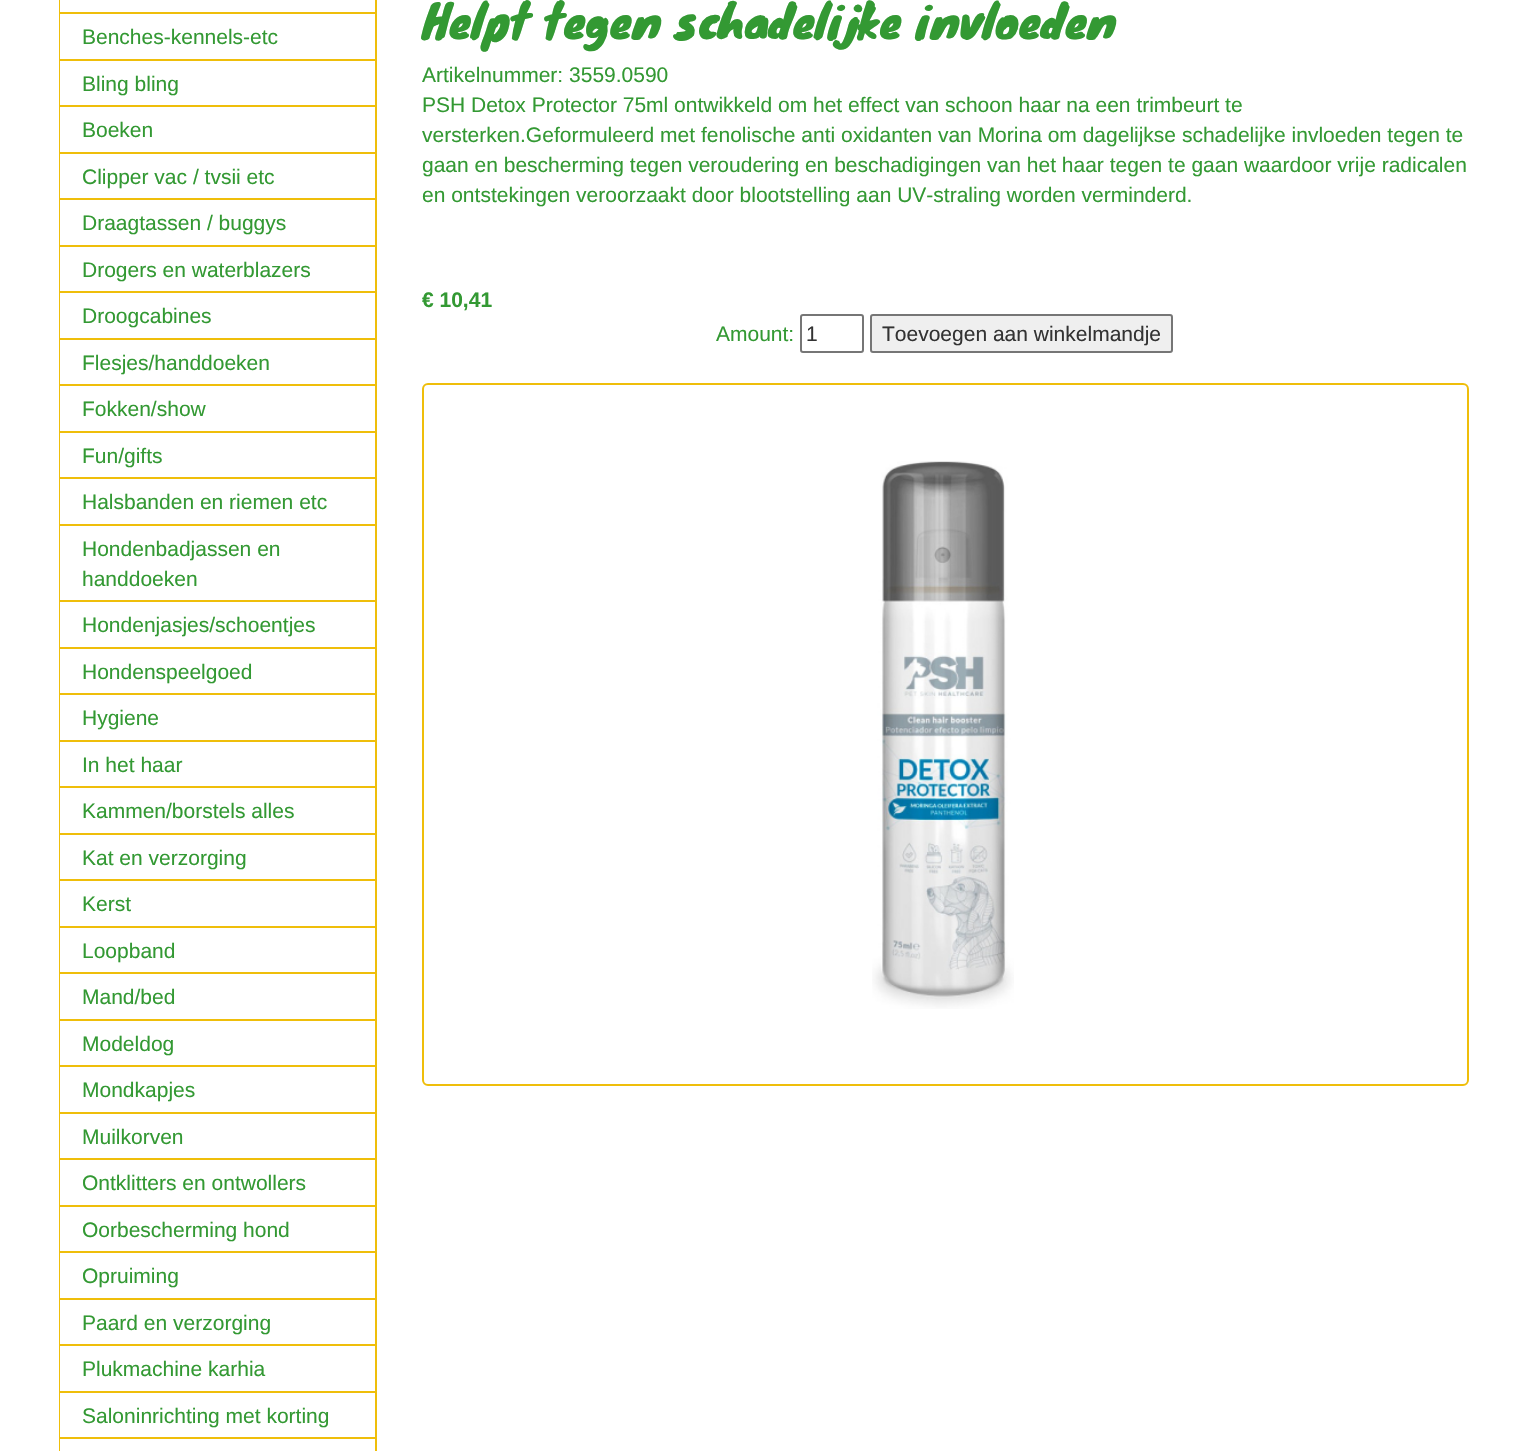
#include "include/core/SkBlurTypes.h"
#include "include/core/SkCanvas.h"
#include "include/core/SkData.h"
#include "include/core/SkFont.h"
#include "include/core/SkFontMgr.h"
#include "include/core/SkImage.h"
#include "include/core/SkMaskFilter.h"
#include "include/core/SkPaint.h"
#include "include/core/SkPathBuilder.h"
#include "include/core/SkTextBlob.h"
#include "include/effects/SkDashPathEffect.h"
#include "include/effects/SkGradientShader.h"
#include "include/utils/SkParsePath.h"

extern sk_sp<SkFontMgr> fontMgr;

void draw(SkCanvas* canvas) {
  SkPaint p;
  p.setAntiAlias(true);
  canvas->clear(SK_ColorWHITE);
  p.setStyle(SkPaint::kStroke_Style);
  p.setStrokeWidth(2);
  p.setColor(SkColorSetRGB(239, 190, 10));
  canvas->drawRect(SkRect::MakeLTRB(60, -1, 376, 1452), p);
  p.setStyle(SkPaint::kFill_Style);
  p.setColor(SK_ColorWHITE);
  canvas->drawRect(SkRect::MakeLTRB(60, 0, 61, 1451), p);
  p.setColor(SkColorSetRGB(239, 190, 10));
  canvas->drawRect(SkRect::MakeLTRB(60, 12, 375, 14), p);
  canvas->drawRect(SkRect::MakeLTRB(60, 59, 375, 61), p);
  canvas->drawRect(SkRect::MakeLTRB(60, 105, 375, 107), p);
  canvas->drawRect(SkRect::MakeLTRB(60, 152, 375, 154), p);
  canvas->drawRect(SkRect::MakeLTRB(60, 198, 375, 200), p);
  canvas->drawRect(SkRect::MakeLTRB(60, 245, 375, 247), p);
  canvas->drawRect(SkRect::MakeLTRB(60, 291, 375, 293), p);
  canvas->drawRect(SkRect::MakeLTRB(60, 338, 375, 340), p);
  canvas->drawRect(SkRect::MakeLTRB(60, 384, 375, 386), p);
  canvas->drawRect(SkRect::MakeLTRB(60, 431, 375, 433), p);
  canvas->drawRect(SkRect::MakeLTRB(60, 477, 375, 479), p);
  canvas->drawRect(SkRect::MakeLTRB(60, 524, 375, 526), p);
  canvas->drawRect(SkRect::MakeLTRB(60, 600, 375, 602), p);
  canvas->drawRect(SkRect::MakeLTRB(60, 647, 375, 649), p);
  canvas->drawRect(SkRect::MakeLTRB(60, 693, 375, 695), p);
  canvas->drawRect(SkRect::MakeLTRB(60, 740, 375, 742), p);
  canvas->drawRect(SkRect::MakeLTRB(60, 786, 375, 788), p);
  canvas->drawRect(SkRect::MakeLTRB(60, 833, 375, 835), p);
  canvas->drawRect(SkRect::MakeLTRB(60, 879, 375, 881), p);
  canvas->drawRect(SkRect::MakeLTRB(60, 926, 375, 928), p);
  canvas->drawRect(SkRect::MakeLTRB(60, 972, 375, 974), p);
  canvas->drawRect(SkRect::MakeLTRB(60, 1019, 375, 1021), p);
  canvas->drawRect(SkRect::MakeLTRB(60, 1065, 375, 1067), p);
  canvas->drawRect(SkRect::MakeLTRB(60, 1112, 375, 1114), p);
  canvas->drawRect(SkRect::MakeLTRB(60, 1158, 375, 1160), p);
  canvas->drawRect(SkRect::MakeLTRB(60, 1205, 375, 1207), p);
  canvas->drawRect(SkRect::MakeLTRB(60, 1251, 375, 1253), p);
  canvas->drawRect(SkRect::MakeLTRB(60, 1298, 375, 1300), p);
  canvas->drawRect(SkRect::MakeLTRB(60, 1344, 375, 1346), p);
  canvas->drawRect(SkRect::MakeLTRB(60, 1391, 375, 1393), p);
  canvas->drawRect(SkRect::MakeLTRB(60, 1437, 375, 1439), p);
  p.setStyle(SkPaint::kStroke_Style);
  p.setColor(SkColorSetRGB(118, 118, 118));
  canvas->drawRoundRect(SkRect::MakeLTRB(801, 315, 863, 352), 2, 2, p);
  p.setStyle(SkPaint::kFill_Style);
  p.setColor(SkColorSetRGB(239, 239, 239));
  canvas->drawRoundRect(SkRect::MakeLTRB(871, 315, 1172, 352), 2, 2, p);
  p.setStyle(SkPaint::kStroke_Style);
  p.setColor(SkColorSetRGB(118, 118, 118));
  canvas->drawRoundRect(SkRect::MakeLTRB(871, 315, 1172, 352), 2, 2, p);
  p.setColor(SkColorSetRGB(239, 190, 10));
  canvas->drawRoundRect(SkRect::MakeLTRB(423, 384, 1468, 1085), 5, 5, p);
  canvas->drawImageRect(SkImages::DeferredFromEncodedData(SkData::MakeFromFileName("images/1.png")), SkRect::MakeLTRB(872, 461, 1014, 1009), SkSamplingOptions());
  SkFont font1(fontMgr->matchFamilyStyle("Liberation Sans", SkFontStyle::Normal()), 21);
  font1.setSubpixel(true);
  p.setStyle(SkPaint::kFill_Style);
  p.setColor(SkColorSetRGB(51, 153, 51));
  canvas->drawString("Benches-kennels-etc", 82, 44, font1, p);
  canvas->drawString("Bling bling", 82, 91, font1, p);
  canvas->drawString("Boeken", 82, 137, font1, p);
  canvas->drawString("Clipper vac / tvsii etc", 82, 184, font1, p);
  canvas->drawString("Draagtassen / buggys", 82, 230, font1, p);
  canvas->drawString("Drogers en waterblazers", 82, 277, font1, p);
  canvas->drawString("Droogcabines", 82, 323, font1, p);
  canvas->drawString("Flesjes/handdoeken", 82, 370, font1, p);
  canvas->drawString("Fokken/show", 82, 416, font1, p);
  canvas->drawString("Fun/gifts", 82, 463, font1, p);
  canvas->drawString("Halsbanden en riemen etc", 82, 509, font1, p);
  canvas->drawString("Hondenbadjassen en", 82, 556, font1, p);
  canvas->drawString("handdoeken", 82, 586, font1, p);
  canvas->drawString("Hondenjasjes/schoentjes", 82, 632, font1, p);
  canvas->drawString("Hondenspeelgoed", 82, 679, font1, p);
  canvas->drawString("Hygiene", 82, 725, font1, p);
  canvas->drawString("In het haar", 82, 772, font1, p);
  canvas->drawString("Kammen/borstels alles", 82, 818, font1, p);
  canvas->drawString("Kat en verzorging", 82, 865, font1, p);
  canvas->drawString("Kerst", 82, 911, font1, p);
  canvas->drawString("Loopband", 82, 958, font1, p);
  canvas->drawString("Mand/bed", 82, 1004, font1, p);
  canvas->drawString("Modeldog", 82, 1051, font1, p);
  canvas->drawString("Mondkapjes", 82, 1097, font1, p);
  canvas->drawString("Muilkorven", 82, 1144, font1, p);
  canvas->drawString("Ontklitters en ontwollers", 82, 1190, font1, p);
  canvas->drawString("Oorbescherming hond", 82, 1237, font1, p);
  canvas->drawString("Opruiming", 82, 1283, font1, p);
  canvas->drawString("Paard en verzorging", 82, 1330, font1, p);
  canvas->drawString("Plukmachine karhia", 82, 1376, font1, p);
  canvas->drawString("Saloninrichting met korting", 82, 1423, font1, p);
  SkFont font2(fontMgr->matchFamilyStyle("Knewave", SkFontStyle::Normal()), 45);
  font2.setSubpixel(true);
  canvas->drawString("Helpt tegen schadelijke invloeden", 422, 37, font2, p);
  canvas->drawString("Artikelnummer: 3559.0590", 422, 82, font1, p);
  canvas->drawString("PSH Detox Protector 75ml ontwikkeld om het effect van schoon haar na een trimbeurt te", 422, 112, font1, p);
  canvas->drawString("versterken.Geformuleerd met fenolische anti oxidanten van Morina om dagelijkse schadelijke invloeden tegen te", 422, 142, font1, p);
  canvas->drawString("gaan en bescherming tegen veroudering en beschadigingen van het haar tegen te gaan waardoor vrije radicalen", 422, 172, font1, p);
  canvas->drawString("en ontstekingen veroorzaakt door blootstelling aan UV-straling worden verminderd.", 422, 202, font1, p);
  SkFont font3(fontMgr->matchFamilyStyle("Liberation Sans", SkFontStyle::Bold()), 21);
  font3.setSubpixel(true);
  canvas->drawString("€ 10,41", 422, 307, font3, p);
  canvas->drawString("Amount:", 716, 341, font1, p);
  p.setColor(SkColorSetRGB(51, 51, 51));
  canvas->drawString("1", 806, 341, font1, p);
  canvas->drawString("Toevoegen aan winkelmandje", 882, 341, font1, p);
}
